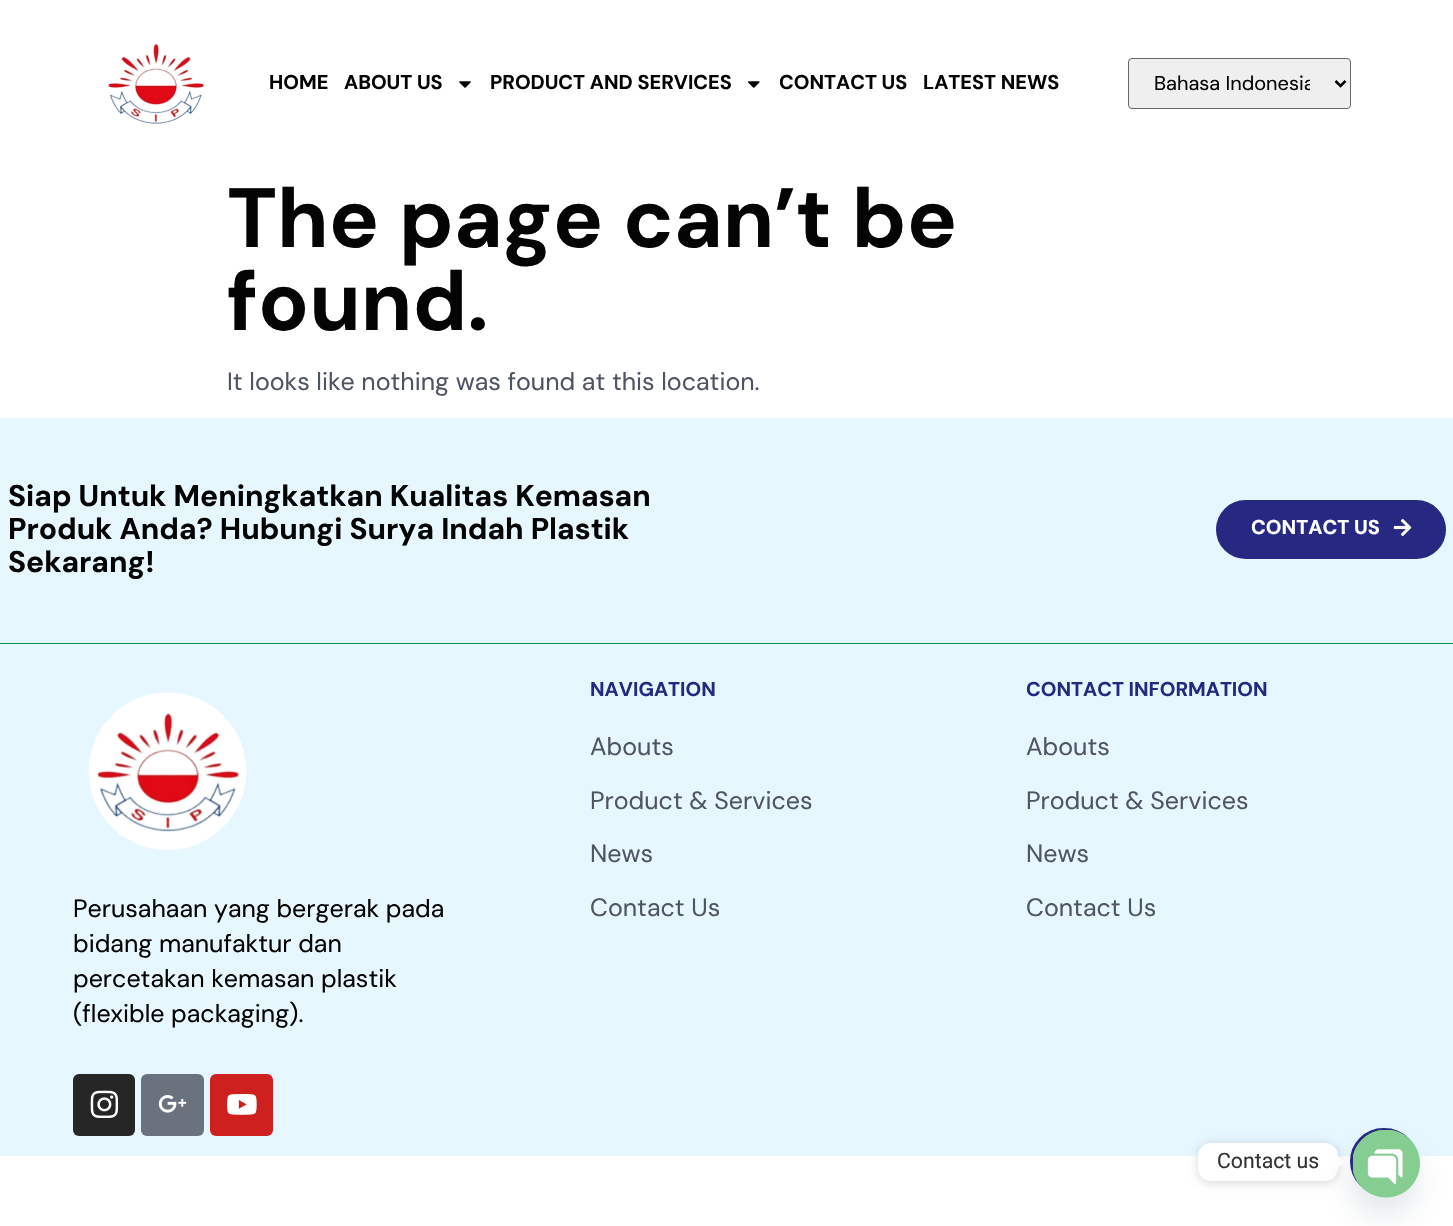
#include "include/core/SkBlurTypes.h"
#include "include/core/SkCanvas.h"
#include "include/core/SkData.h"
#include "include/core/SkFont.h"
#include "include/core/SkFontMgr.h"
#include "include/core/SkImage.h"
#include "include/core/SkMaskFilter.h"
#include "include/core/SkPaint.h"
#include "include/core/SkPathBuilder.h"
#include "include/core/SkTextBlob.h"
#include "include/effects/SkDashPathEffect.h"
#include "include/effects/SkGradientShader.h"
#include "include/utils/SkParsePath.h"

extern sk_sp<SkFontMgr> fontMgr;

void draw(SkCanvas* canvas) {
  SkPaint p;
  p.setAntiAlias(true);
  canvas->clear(SK_ColorWHITE);
  canvas->drawImageRect(SkImages::DeferredFromEncodedData(SkData::MakeFromFileName("images/1.png")), SkRect::MakeLTRB(108, 44, 205, 124), SkSamplingOptions());
  canvas->drawImageRect(SkImages::DeferredFromEncodedData(SkData::MakeFromFileName("images/2.png")), SkRect::MakeLTRB(459, 81, 471, 88), SkSamplingOptions());
  canvas->drawImageRect(SkImages::DeferredFromEncodedData(SkData::MakeFromFileName("images/3.png")), SkRect::MakeLTRB(748, 81, 760, 88), SkSamplingOptions());
  p.setColor(SkColorSetRGB(239, 239, 239));
  canvas->drawRoundRect(SkRect::MakeLTRB(1128.5f, 58.5f, 1350.5f, 108.5f), 3.5f, 3.5f, p);
  p.setStyle(SkPaint::kStroke_Style);
  p.setStrokeWidth(1);
  p.setColor(SkColorSetRGB(102, 102, 102));
  canvas->drawRoundRect(SkRect::MakeLTRB(1128.5f, 58.5f, 1350.5f, 108.5f), 3.5f, 3.5f, p);
  p.setStrokeWidth(2.5f);
  p.setColor(SK_ColorBLACK);
  canvas->drawPath(SkPathBuilder().moveTo(1335.5f, 81).lineTo(1340.5f, 86).lineTo(1345.5f, 81).detach(), p);
  p.setStyle(SkPaint::kFill_Style);
  p.setColor(SkColorSetRGB(3, 147, 69));
  canvas->drawRect(SkRect::MakeLTRB(0, 643, 1453, 644), p);
  p.setColor(SkColorSetRGB(231, 247, 255));
  canvas->drawRect(SkRect::MakeLTRB(0, 418, 1453, 643), p);
  p.setColor(SkColorSetRGB(39, 40, 129));
  canvas->drawRoundRect(SkRect::MakeLTRB(1217.5f, 501.5f, 1444.5f, 557.5f), 28, 28, p);
  p.setStyle(SkPaint::kStroke_Style);
  p.setStrokeWidth(3);
  canvas->drawRoundRect(SkRect::MakeLTRB(1217.5f, 501.5f, 1444.5f, 557.5f), 28, 28, p);
  canvas->drawImageRect(SkImages::DeferredFromEncodedData(SkData::MakeFromFileName("images/4.png")), SkRect::MakeLTRB(1393, 519, 1412, 536), SkSamplingOptions());
  p.setStyle(SkPaint::kFill_Style);
  p.setColor(SkColorSetRGB(231, 247, 255));
  canvas->drawRect(SkRect::MakeLTRB(0, 644, 1453, 1156), p);
  canvas->drawImageRect(SkImages::DeferredFromEncodedData(SkData::MakeFromFileName("images/5.png")), SkRect::MakeLTRB(88, 692, 247, 850), SkSamplingOptions());
  p.setColor(SkColorSetRGB(38, 38, 38));
  canvas->drawRoundRect(SkRect::MakeLTRB(73, 1074, 135, 1136), 6, 6, p);
  canvas->drawImageRect(SkImages::DeferredFromEncodedData(SkData::MakeFromFileName("images/6.png")), SkRect::MakeLTRB(90, 1090, 119, 1119), SkSamplingOptions());
  p.setColor(SkColorSetRGB(105, 114, 125));
  canvas->drawRoundRect(SkRect::MakeLTRB(141, 1074, 204, 1136), 6, 6, p);
  canvas->drawImageRect(SkImages::DeferredFromEncodedData(SkData::MakeFromFileName("images/7.png")), SkRect::MakeLTRB(158, 1095, 187, 1113), SkSamplingOptions());
  p.setColor(SkColorSetRGB(205, 32, 31));
  canvas->drawRoundRect(SkRect::MakeLTRB(210, 1074, 273, 1136), 6, 6, p);
  canvas->drawImageRect(SkImages::DeferredFromEncodedData(SkData::MakeFromFileName("images/8.png")), SkRect::MakeLTRB(227, 1093, 257, 1115), SkSamplingOptions());
  p.setColor(SkColorSetARGB(38, 0, 0, 0));
  p.setMaskFilter(SkMaskFilter::MakeBlur(kNormal_SkBlurStyle, 5));
  canvas->drawRoundRect(SkRect::MakeLTRB(1198, 1144, 1338, 1183), 13, 13, p);
  p.setMaskFilter(nullptr);
  p.setColor(SK_ColorWHITE);
  canvas->drawRoundRect(SkRect::MakeLTRB(1198, 1143, 1338, 1181), 13, 13, p);
  canvas->drawPath(SkPathBuilder().moveTo(1337.5f, 1168).lineTo(1337.5f, 1155.5f).lineTo(1344, 1162).close().detach(), p);
  p.setColor(SkColorSetARGB(41, 73, 104, 126));
  p.setMaskFilter(SkMaskFilter::MakeBlur(kNormal_SkBlurStyle, 15));
  canvas->drawRoundRect(SkRect::MakeLTRB(1350, 1148, 1418, 1215), 33.5f, 33.5f, p);
  p.setMaskFilter(nullptr);
  p.setStyle(SkPaint::kStroke_Style);
  p.setColor(SkColorSetRGB(39, 40, 129));
  canvas->drawRoundRect(SkRect::MakeLTRB(1351.5f, 1129.5f, 1416.5f, 1193.5f), 32, 32, p);
  canvas->drawImageRect(SkImages::DeferredFromEncodedData(SkData::MakeFromFileName("images/9.png")), SkRect::MakeLTRB(1353, 1130, 1420, 1198), SkSamplingOptions());
  SkFont font1(fontMgr->matchFamilyStyle("DM Sans", SkFontStyle::Bold()), 20);
  font1.setSubpixel(true);
  p.setStyle(SkPaint::kFill_Style);
  p.setColor(SkColorSetRGB(5, 4, 4));
  canvas->drawString("HOME", 269, 89, font1, p);
  canvas->drawString("ABOUT US", 344, 89, font1, p);
  canvas->drawString("PRODUCT AND SERVICES", 490, 89, font1, p);
  canvas->drawString("CONTACT US", 779, 89, font1, p);
  canvas->drawString("LATEST NEWS", 923, 89, font1, p);
  canvas->save();
  canvas->clipRect(SkRect::MakeLTRB(1154, 69, 1310, 98));
  SkFont font2(fontMgr->matchFamilyStyle("DM Sans", SkFontStyle::Normal()), 20);
  font2.setSubpixel(true);
  canvas->drawString("Bahasa Indonesia", 1154, 90, font2, p);
  canvas->restore();
  SkFont font3(fontMgr->matchFamilyStyle("DM Sans", SkFontStyle::Bold()), 83.75f);
  font3.setSubpixel(true);
  canvas->drawString("The page can’t be", 227, 247, font3, p);
  canvas->drawString("found.", 227, 330, font3, p);
  SkFont font4(fontMgr->matchFamilyStyle("DM Sans", SkFontStyle::Normal()), 25);
  font4.setSubpixel(true);
  p.setColor(SkColorSetRGB(79, 84, 100));
  canvas->drawString("It looks like nothing was found at this location.", 227, 390, font4, p);
  SkFont font5(fontMgr->matchFamilyStyle("DM Sans", SkFontStyle::Bold()), 30);
  font5.setSubpixel(true);
  p.setColor(SkColorSetRGB(5, 4, 4));
  canvas->drawString("Siap Untuk Meningkatkan Kualitas Kemasan", 8, 506, font5, p);
  canvas->drawString("Produk Anda? Hubungi Surya Indah Plastik", 8, 539, font5, p);
  canvas->drawString("Sekarang!", 8, 572, font5, p);
  SkFont font6(fontMgr->matchFamilyStyle("DM Sans", SkFontStyle(800, SkFontStyle::kNormal_Width, SkFontStyle::kUpright_Slant)), 20);
  font6.setSubpixel(true);
  p.setColor(SK_ColorWHITE);
  canvas->drawString("CONTACT US", 1251, 534, font6, p);
  p.setColor(SkColorSetRGB(39, 40, 129));
  canvas->drawString("NAVIGATION", 590, 696, font1, p);
  p.setColor(SkColorSetRGB(79, 84, 100));
  canvas->drawString("Abouts", 590, 755, font4, p);
  canvas->drawString("Product & Services", 590, 809, font4, p);
  canvas->drawString("News", 590, 862, font4, p);
  canvas->drawString("Contact Us", 590, 916, font4, p);
  p.setColor(SkColorSetRGB(39, 40, 129));
  canvas->drawString("CONTACT INFORMATION", 1026, 696, font1, p);
  p.setColor(SkColorSetRGB(79, 84, 100));
  canvas->drawString("Abouts", 1026, 755, font4, p);
  canvas->drawString("Product & Services", 1026, 809, font4, p);
  canvas->drawString("News", 1026, 862, font4, p);
  canvas->drawString("Contact Us", 1026, 916, font4, p);
  p.setColor(SkColorSetRGB(5, 4, 4));
  canvas->drawString("Perusahaan yang bergerak pada", 73, 917, font4, p);
  canvas->drawString("bidang manufaktur dan", 73, 952, font4, p);
  canvas->drawString("percetakan kemasan plastik", 73, 987, font4, p);
  canvas->drawString("(flexible packaging).", 73, 1022, font4, p);
  SkFont font7(fontMgr->matchFamilyStyle("Roboto", SkFontStyle::Normal()), 21.25f);
  font7.setSubpixel(true);
  p.setColor(SkColorSetRGB(51, 51, 51));
  canvas->drawString("Contact us", 1217, 1168, font7, p);
}
